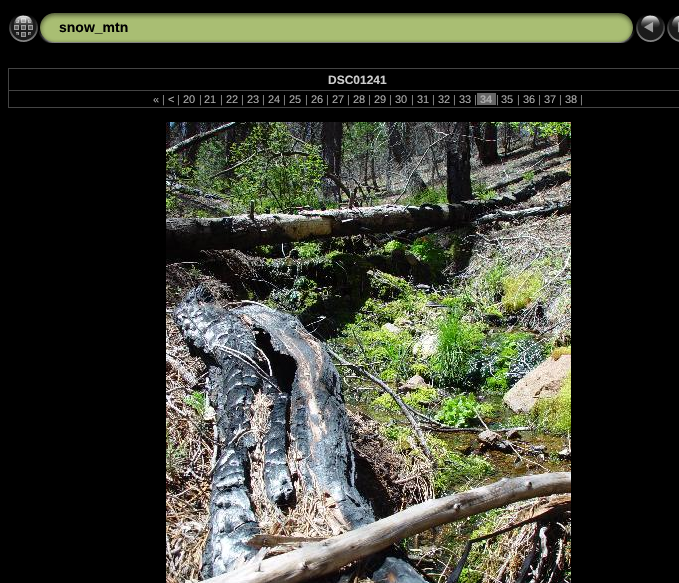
#include "include/core/SkBlurTypes.h"
#include "include/core/SkCanvas.h"
#include "include/core/SkData.h"
#include "include/core/SkFont.h"
#include "include/core/SkFontMgr.h"
#include "include/core/SkImage.h"
#include "include/core/SkMaskFilter.h"
#include "include/core/SkPaint.h"
#include "include/core/SkPathBuilder.h"
#include "include/core/SkTextBlob.h"
#include "include/effects/SkDashPathEffect.h"
#include "include/effects/SkGradientShader.h"
#include "include/utils/SkParsePath.h"

extern sk_sp<SkFontMgr> fontMgr;

void draw(SkCanvas* canvas) {
  SkPaint p;
  p.setAntiAlias(true);
  canvas->clear(SK_ColorBLACK);
  canvas->drawImageRect(SkImages::DeferredFromEncodedData(SkData::MakeFromFileName("images/1.png")), SkRect::MakeLTRB(9, 15, 38, 42), SkSamplingOptions());
  canvas->drawImageRect(SkImages::DeferredFromEncodedData(SkData::MakeFromFileName("images/2.png")), SkRect::MakeLTRB(39, 13, 59, 43), SkSamplingOptions());
  canvas->drawImageRect(SkImages::DeferredFromEncodedData(SkData::MakeFromFileName("images/3.png")), SkRect::MakeLTRB(59, 13, 615, 43), SkSamplingOptions());
  canvas->drawImageRect(SkImages::DeferredFromEncodedData(SkData::MakeFromFileName("images/4.png")), SkRect::MakeLTRB(615, 13, 635, 43), SkSamplingOptions());
  canvas->drawImageRect(SkImages::DeferredFromEncodedData(SkData::MakeFromFileName("images/5.png")), SkRect::MakeLTRB(636, 15, 665, 42), SkSamplingOptions());
  canvas->drawImageRect(SkImages::DeferredFromEncodedData(SkData::MakeFromFileName("images/6.png")), SkRect::MakeLTRB(667, 15, 679, 42), SkSamplingOptions());
  p.setColor(SkColorSetRGB(68, 68, 68));
  canvas->drawRect(SkRect::MakeLTRB(8, 68, 679, 69), p);
  canvas->drawRect(SkRect::MakeLTRB(8, 107, 679, 108), p);
  canvas->drawRect(SkRect::MakeLTRB(8, 68, 9, 108), p);
  canvas->drawRect(SkRect::MakeLTRB(8, 90, 679, 91), p);
  p.setColor(SkColorSetRGB(102, 102, 102));
  canvas->drawRect(SkRect::MakeLTRB(477, 93, 496, 105), p);
  canvas->drawImageRect(SkImages::DeferredFromEncodedData(SkData::MakeFromFileName("images/7.png")), SkRect::MakeLTRB(166, 122, 571, 583), SkSamplingOptions());
  SkFont font1(fontMgr->matchFamilyStyle("Liberation Sans", SkFontStyle::Bold()), 14);
  font1.setSubpixel(true);
  p.setColor(SK_ColorBLACK);
  canvas->drawString("snow_mtn", 59, 32, font1, p);
  SkFont font2(fontMgr->matchFamilyStyle("Liberation Sans", SkFontStyle::Bold()), 12);
  font2.setSubpixel(true);
  p.setColor(SkColorSetRGB(204, 204, 204));
  canvas->drawString("DSC01241", 328, 84, font2, p);
  SkFont font3(fontMgr->matchFamilyStyle("Liberation Sans", SkFontStyle::Normal()), 11);
  font3.setSubpixel(true);
  p.setColor(SkColorSetRGB(170, 170, 170));
  canvas->drawString("«", 153, 103, font3, p);
  p.setColor(SkColorSetRGB(136, 136, 136));
  canvas->drawString("|", 162, 103, font3, p);
  p.setColor(SkColorSetRGB(170, 170, 170));
  canvas->drawString("<", 168, 103, font3, p);
  p.setColor(SkColorSetRGB(136, 136, 136));
  canvas->drawString("|", 177, 103, font3, p);
  p.setColor(SkColorSetRGB(170, 170, 170));
  canvas->drawString("20", 183, 103, font3, p);
  p.setColor(SkColorSetRGB(136, 136, 136));
  canvas->drawString("|", 199, 103, font3, p);
  p.setColor(SkColorSetRGB(170, 170, 170));
  canvas->drawString("21", 204, 103, font3, p);
  p.setColor(SkColorSetRGB(136, 136, 136));
  canvas->drawString("|", 220, 103, font3, p);
  p.setColor(SkColorSetRGB(170, 170, 170));
  canvas->drawString("22", 226, 103, font3, p);
  p.setColor(SkColorSetRGB(136, 136, 136));
  canvas->drawString("|", 241, 103, font3, p);
  p.setColor(SkColorSetRGB(170, 170, 170));
  canvas->drawString("23", 247, 103, font3, p);
  p.setColor(SkColorSetRGB(136, 136, 136));
  canvas->drawString("|", 262, 103, font3, p);
  p.setColor(SkColorSetRGB(170, 170, 170));
  canvas->drawString("24", 268, 103, font3, p);
  p.setColor(SkColorSetRGB(136, 136, 136));
  canvas->drawString("|", 283, 103, font3, p);
  p.setColor(SkColorSetRGB(170, 170, 170));
  canvas->drawString("25", 289, 103, font3, p);
  p.setColor(SkColorSetRGB(136, 136, 136));
  canvas->drawString("|", 305, 103, font3, p);
  p.setColor(SkColorSetRGB(170, 170, 170));
  canvas->drawString("26", 311, 103, font3, p);
  p.setColor(SkColorSetRGB(136, 136, 136));
  canvas->drawString("|", 326, 103, font3, p);
  p.setColor(SkColorSetRGB(170, 170, 170));
  canvas->drawString("27", 332, 103, font3, p);
  p.setColor(SkColorSetRGB(136, 136, 136));
  canvas->drawString("|", 347, 103, font3, p);
  p.setColor(SkColorSetRGB(170, 170, 170));
  canvas->drawString("28", 353, 103, font3, p);
  p.setColor(SkColorSetRGB(136, 136, 136));
  canvas->drawString("|", 368, 103, font3, p);
  p.setColor(SkColorSetRGB(170, 170, 170));
  canvas->drawString("29", 374, 103, font3, p);
  p.setColor(SkColorSetRGB(136, 136, 136));
  canvas->drawString("|", 389, 103, font3, p);
  p.setColor(SkColorSetRGB(170, 170, 170));
  canvas->drawString("30", 395, 103, font3, p);
  p.setColor(SkColorSetRGB(136, 136, 136));
  canvas->drawString("|", 411, 103, font3, p);
  p.setColor(SkColorSetRGB(170, 170, 170));
  canvas->drawString("31", 417, 103, font3, p);
  p.setColor(SkColorSetRGB(136, 136, 136));
  canvas->drawString("|", 432, 103, font3, p);
  p.setColor(SkColorSetRGB(170, 170, 170));
  canvas->drawString("32", 438, 103, font3, p);
  p.setColor(SkColorSetRGB(136, 136, 136));
  canvas->drawString("|", 453, 103, font3, p);
  p.setColor(SkColorSetRGB(170, 170, 170));
  canvas->drawString("33", 459, 103, font3, p);
  p.setColor(SkColorSetRGB(136, 136, 136));
  canvas->drawString("|", 474, 103, font3, p);
  SkFont font4(fontMgr->matchFamilyStyle("Liberation Sans", SkFontStyle::Bold()), 11);
  font4.setSubpixel(true);
  p.setColor(SkColorSetRGB(170, 170, 170));
  canvas->drawString("34", 480, 103, font4, p);
  p.setColor(SkColorSetRGB(136, 136, 136));
  canvas->drawString("|", 496, 103, font3, p);
  p.setColor(SkColorSetRGB(170, 170, 170));
  canvas->drawString("35", 501, 103, font3, p);
  p.setColor(SkColorSetRGB(136, 136, 136));
  canvas->drawString("|", 517, 103, font3, p);
  p.setColor(SkColorSetRGB(170, 170, 170));
  canvas->drawString("36", 523, 103, font3, p);
  p.setColor(SkColorSetRGB(136, 136, 136));
  canvas->drawString("|", 538, 103, font3, p);
  p.setColor(SkColorSetRGB(170, 170, 170));
  canvas->drawString("37", 544, 103, font3, p);
  p.setColor(SkColorSetRGB(136, 136, 136));
  canvas->drawString("|", 559, 103, font3, p);
  p.setColor(SkColorSetRGB(170, 170, 170));
  canvas->drawString("38", 565, 103, font3, p);
  p.setColor(SkColorSetRGB(136, 136, 136));
  canvas->drawString("|", 580, 103, font3, p);
}
